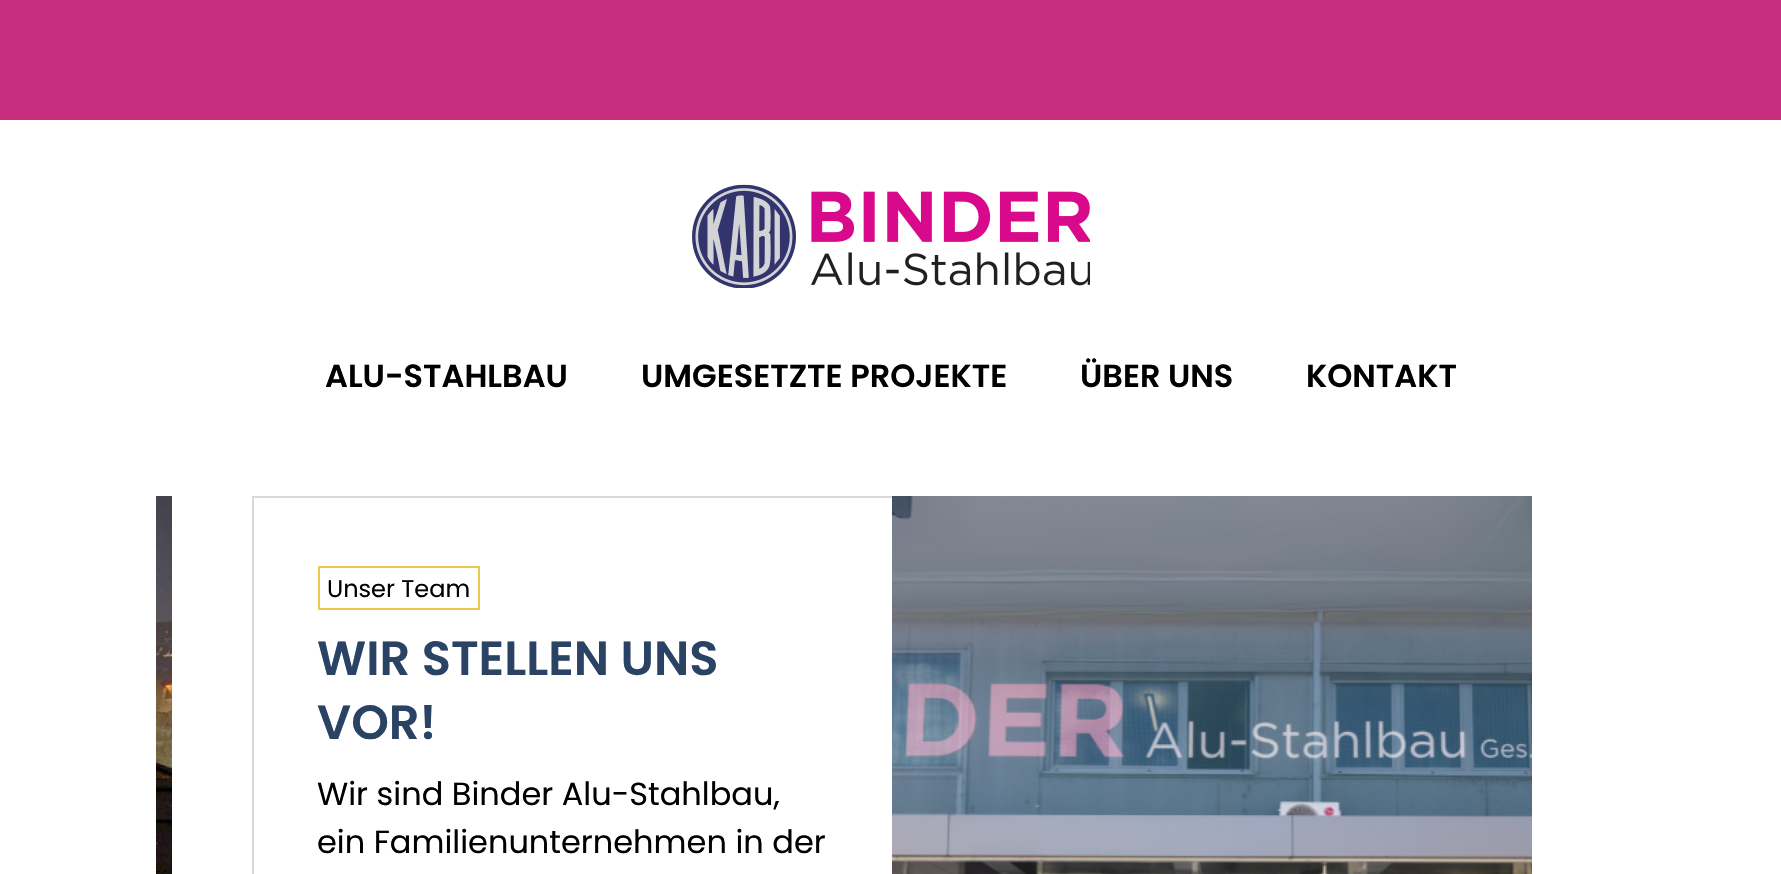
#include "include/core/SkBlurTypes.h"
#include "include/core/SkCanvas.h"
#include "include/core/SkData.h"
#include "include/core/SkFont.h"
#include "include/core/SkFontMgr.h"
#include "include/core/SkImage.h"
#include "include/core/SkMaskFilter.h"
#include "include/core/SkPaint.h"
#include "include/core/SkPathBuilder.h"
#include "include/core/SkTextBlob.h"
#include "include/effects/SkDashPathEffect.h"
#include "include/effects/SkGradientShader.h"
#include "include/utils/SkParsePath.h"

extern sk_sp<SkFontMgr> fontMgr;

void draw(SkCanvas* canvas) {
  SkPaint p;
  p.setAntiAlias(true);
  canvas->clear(SK_ColorWHITE);
  p.setColor(SkColorSetRGB(199, 46, 125));
  canvas->drawRect(SkRect::MakeLTRB(0, 0, 1781, 120), p);
  canvas->drawImageRect(SkImages::DeferredFromEncodedData(SkData::MakeFromFileName("images/1.png")), SkRect::MakeLTRB(692, 184, 1090, 288), SkSamplingOptions());
  canvas->drawImageRect(SkImages::DeferredFromEncodedData(SkData::MakeFromFileName("images/2.png")), SkRect::MakeLTRB(156, 496, 172, 874), SkSamplingOptions());
  p.setColor(SkColorSetRGB(218, 216, 216));
  canvas->drawRect(SkRect::MakeLTRB(252, 496, 892, 498), p);
  canvas->drawRect(SkRect::MakeLTRB(252, 496, 254, 874), p);
  p.setStyle(SkPaint::kStroke_Style);
  p.setStrokeWidth(2);
  p.setColor(SkColorSetRGB(236, 201, 75));
  canvas->drawRect(SkRect::MakeLTRB(319, 567, 479, 609), p);
  canvas->drawImageRect(SkImages::DeferredFromEncodedData(SkData::MakeFromFileName("images/3.png")), SkRect::MakeLTRB(892, 496, 1532, 874), SkSamplingOptions());
  SkFont font1(fontMgr->matchFamilyStyle("Poppins", SkFontStyle(600, SkFontStyle::kNormal_Width, SkFontStyle::kUpright_Slant)), 32);
  font1.setSubpixel(true);
  p.setStyle(SkPaint::kFill_Style);
  p.setColor(SK_ColorBLACK);
  canvas->drawString("ALU-STAHLBAU", 325, 387, font1, p);
  canvas->drawString("UMGESETZTE PROJEKTE", 641, 387, font1, p);
  canvas->drawString("ÜBER UNS", 1080, 387, font1, p);
  canvas->drawString("KONTAKT", 1306, 387, font1, p);
  SkFont font2(fontMgr->matchFamilyStyle("Poppins", SkFontStyle::Normal()), 24);
  font2.setSubpixel(true);
  canvas->drawString("Unser Team", 327, 597, font2, p);
  SkFont font3(fontMgr->matchFamilyStyle("Poppins", SkFontStyle(600, SkFontStyle::kNormal_Width, SkFontStyle::kUpright_Slant)), 48);
  font3.setSubpixel(true);
  p.setColor(SkColorSetRGB(42, 67, 101));
  canvas->drawString("WIR STELLEN UNS", 317, 675, font3, p);
  canvas->drawString("VOR!", 317, 739, font3, p);
  SkFont font4(fontMgr->matchFamilyStyle("Poppins", SkFontStyle::Normal()), 32);
  font4.setSubpixel(true);
  p.setColor(SK_ColorBLACK);
  canvas->drawString("Wir sind Binder Alu-Stahlbau,", 317, 805, font4, p);
  canvas->drawString("ein Familienunternehmen in der", 317, 853, font4, p);
}
